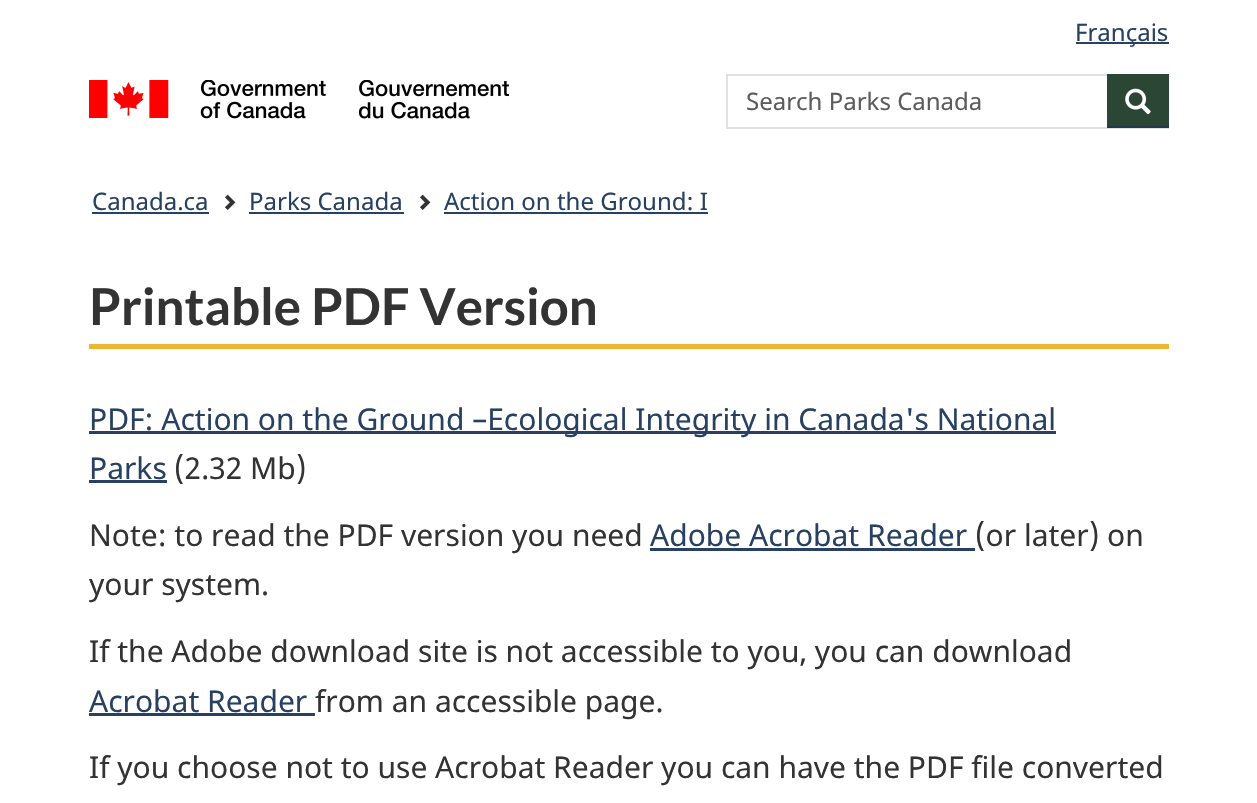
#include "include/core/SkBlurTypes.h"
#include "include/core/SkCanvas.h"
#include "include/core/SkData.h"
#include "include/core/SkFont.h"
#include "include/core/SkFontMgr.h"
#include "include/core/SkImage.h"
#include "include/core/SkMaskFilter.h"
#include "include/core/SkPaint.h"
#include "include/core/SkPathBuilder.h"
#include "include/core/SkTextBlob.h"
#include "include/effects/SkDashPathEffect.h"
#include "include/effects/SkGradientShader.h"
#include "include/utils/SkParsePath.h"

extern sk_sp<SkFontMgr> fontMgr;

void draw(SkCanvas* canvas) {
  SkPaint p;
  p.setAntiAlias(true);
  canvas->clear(SK_ColorWHITE);
  p.setColor(SkColorSetRGB(40, 65, 98));
  canvas->drawRect(SkRect::MakeLTRB(1076, 42, 1169, 44), p);
  canvas->drawImageRect(SkImages::DeferredFromEncodedData(SkData::MakeFromFileName("images/1.png")), SkRect::MakeLTRB(89, 80, 509, 119), SkSamplingOptions());
  p.setStyle(SkPaint::kStroke_Style);
  p.setStrokeWidth(2);
  p.setColor(SkColorSetRGB(224, 224, 224));
  canvas->drawRect(SkRect::MakeLTRB(727, 75, 1168, 128), p);
  p.setStyle(SkPaint::kFill_Style);
  p.setColor(SkColorSetRGB(43, 70, 53));
  canvas->drawRect(SkRect::MakeLTRB(1107, 74, 1169, 126), p);
  p.setColor(SkColorSetRGB(38, 55, 74));
  canvas->drawRect(SkRect::MakeLTRB(1107, 126, 1169, 128), p);
  canvas->drawImageRect(SkImages::DeferredFromEncodedData(SkData::MakeFromFileName("images/2.png")), SkRect::MakeLTRB(1125, 88, 1151, 115), SkSamplingOptions());
  p.setColor(SkColorSetRGB(40, 65, 98));
  canvas->drawRect(SkRect::MakeLTRB(92, 212, 209, 214), p);
  canvas->drawImageRect(SkImages::DeferredFromEncodedData(SkData::MakeFromFileName("images/3.png")), SkRect::MakeLTRB(225, 194, 236, 210), SkSamplingOptions());
  canvas->drawRect(SkRect::MakeLTRB(249, 212, 404, 214), p);
  canvas->drawImageRect(SkImages::DeferredFromEncodedData(SkData::MakeFromFileName("images/3.png")), SkRect::MakeLTRB(420, 194, 431, 210), SkSamplingOptions());
  canvas->drawRect(SkRect::MakeLTRB(444, 212, 708, 214), p);
  p.setColor(SkColorSetRGB(236, 183, 49));
  canvas->drawRect(SkRect::MakeLTRB(89, 344, 1169, 349), p);
  p.setColor(SkColorSetRGB(40, 65, 98));
  canvas->drawRect(SkRect::MakeLTRB(89, 431, 1056, 434), p);
  canvas->drawRect(SkRect::MakeLTRB(89, 480, 167, 483), p);
  canvas->drawRect(SkRect::MakeLTRB(650, 548, 975, 551), p);
  canvas->drawRect(SkRect::MakeLTRB(89, 713, 315, 716), p);
  SkFont font1(fontMgr->matchFamilyStyle("Noto Sans", SkFontStyle::Normal()), 24);
  font1.setSubpixel(true);
  canvas->drawString("Français", 1075, 41, font1, p);
  p.setColor(SkColorSetRGB(92, 92, 92));
  canvas->drawString("Search Parks Canada", 746, 110, font1, p);
  p.setColor(SkColorSetRGB(40, 65, 98));
  canvas->drawString("Canada.ca", 92, 210, font1, p);
  canvas->drawString("Parks Canada", 249, 210, font1, p);
  canvas->drawString("Action on the Ground: I", 444, 210, font1, p);
  SkFont font2(fontMgr->matchFamilyStyle("Lato", SkFontStyle::Bold()), 51);
  font2.setSubpixel(true);
  p.setColor(SkColorSetRGB(51, 51, 51));
  canvas->drawString("Printable PDF Version", 89, 325, font2, p);
  SkFont font3(fontMgr->matchFamilyStyle("Noto Sans", SkFontStyle::Normal()), 30);
  font3.setSubpixel(true);
  p.setColor(SkColorSetRGB(40, 65, 98));
  canvas->drawString("PDF: Action on the Ground –Ecological Integrity in Canada's National", 89, 430, font3, p);
  canvas->drawString("Parks", 89, 479, font3, p);
  p.setColor(SkColorSetRGB(51, 51, 51));
  canvas->drawString("(2.32 Mb)", 174, 479, font3, p);
  canvas->drawString("Note: to read the PDF version you need", 89, 546, font3, p);
  p.setColor(SkColorSetRGB(40, 65, 98));
  canvas->drawString("Adobe Acrobat Reader", 650, 546, font3, p);
  p.setColor(SkColorSetRGB(51, 51, 51));
  canvas->drawString("(or later) on", 975, 546, font3, p);
  canvas->drawString("your system.", 89, 595, font3, p);
  canvas->drawString("If the Adobe download site is not accessible to you, you can download", 89, 662, font3, p);
  p.setColor(SkColorSetRGB(40, 65, 98));
  canvas->drawString("Acrobat Reader", 89, 712, font3, p);
  p.setColor(SkColorSetRGB(51, 51, 51));
  canvas->drawString("from an accessible page.", 315, 712, font3, p);
  canvas->drawString("If you choose not to use Acrobat Reader you can have the PDF file converted", 89, 778, font3, p);
}
